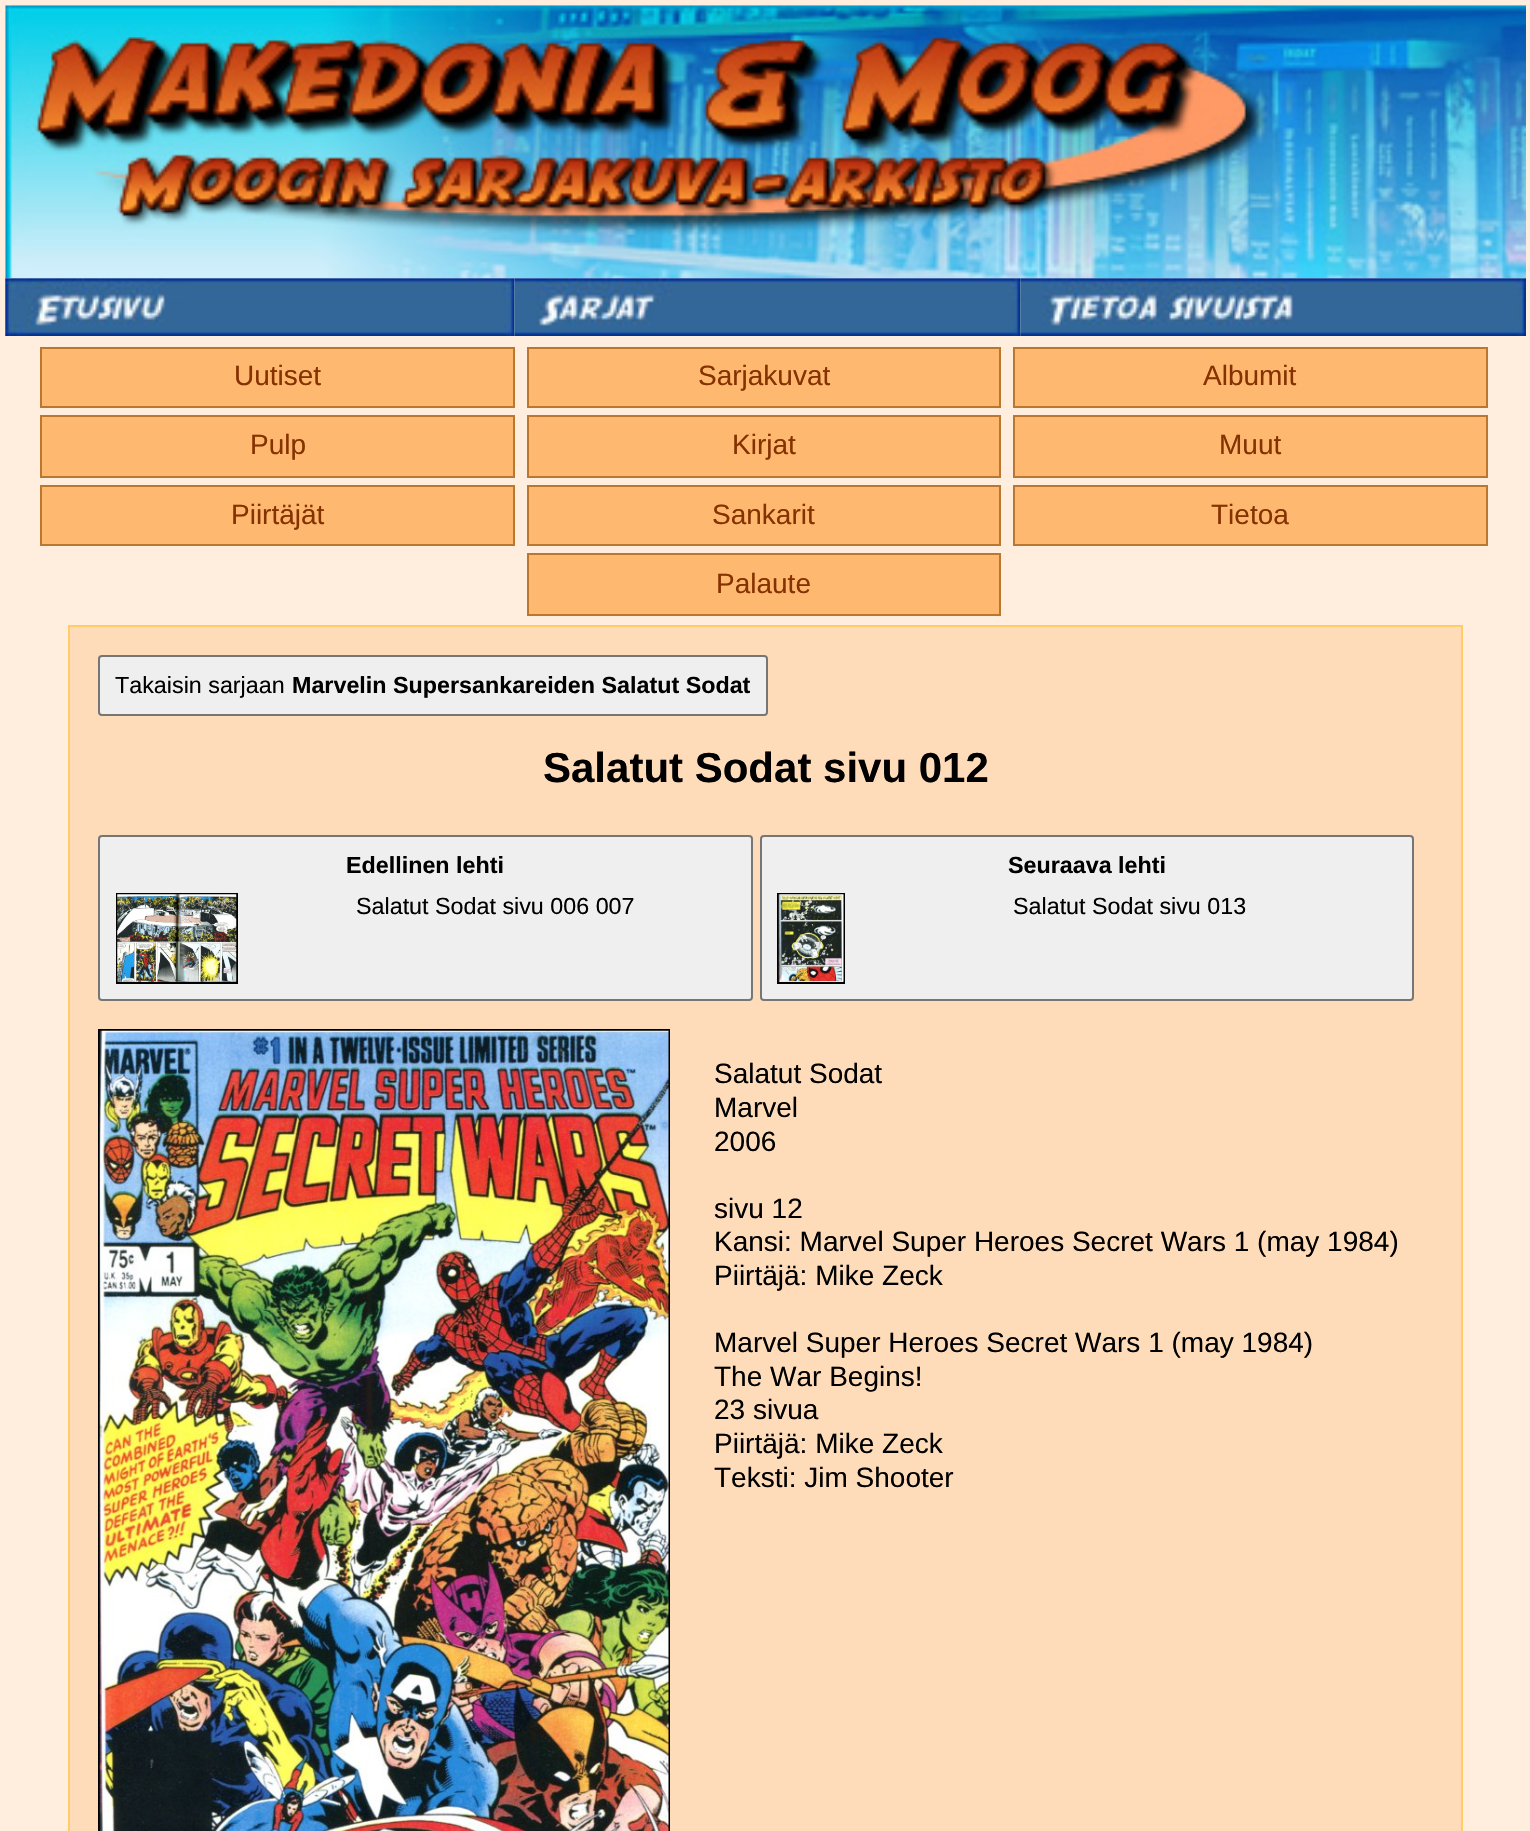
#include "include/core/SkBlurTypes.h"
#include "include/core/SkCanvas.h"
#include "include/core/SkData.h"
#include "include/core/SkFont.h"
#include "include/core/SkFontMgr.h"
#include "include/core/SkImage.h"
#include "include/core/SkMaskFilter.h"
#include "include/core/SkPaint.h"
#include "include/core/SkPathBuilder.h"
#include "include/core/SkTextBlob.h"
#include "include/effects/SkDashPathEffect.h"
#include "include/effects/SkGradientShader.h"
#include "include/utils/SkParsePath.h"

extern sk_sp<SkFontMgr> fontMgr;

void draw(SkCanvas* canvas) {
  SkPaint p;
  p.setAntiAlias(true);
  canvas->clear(SkColorSetRGB(255, 238, 221));
  canvas->drawImageRect(SkImages::DeferredFromEncodedData(SkData::MakeFromFileName("images/2.png")), SkRect::MakeLTRB(5, 278, 515, 336), SkSamplingOptions());
  canvas->drawImageRect(SkImages::DeferredFromEncodedData(SkData::MakeFromFileName("images/3.png")), SkRect::MakeLTRB(514, 278, 1021, 336), SkSamplingOptions());
  canvas->drawImageRect(SkImages::DeferredFromEncodedData(SkData::MakeFromFileName("images/4.png")), SkRect::MakeLTRB(1020, 278, 1526, 336), SkSamplingOptions());
  canvas->drawImageRect(SkImages::DeferredFromEncodedData(SkData::MakeFromFileName("images/1.png")), SkRect::MakeLTRB(5, 5, 1526, 279), SkSamplingOptions());
  p.setColor(SkColorSetRGB(254, 184, 112));
  canvas->drawRect(SkRect::MakeLTRB(41, 348, 514, 407), p);
  p.setStyle(SkPaint::kStroke_Style);
  p.setStrokeWidth(2);
  p.setColor(SkColorSetRGB(185, 119, 49));
  canvas->drawRect(SkRect::MakeLTRB(41, 348, 514, 407), p);
  p.setStyle(SkPaint::kFill_Style);
  p.setColor(SkColorSetRGB(254, 184, 112));
  canvas->drawRect(SkRect::MakeLTRB(528, 348, 1000, 407), p);
  p.setStyle(SkPaint::kStroke_Style);
  p.setColor(SkColorSetRGB(185, 119, 49));
  canvas->drawRect(SkRect::MakeLTRB(528, 348, 1000, 407), p);
  p.setStyle(SkPaint::kFill_Style);
  p.setColor(SkColorSetRGB(254, 184, 112));
  canvas->drawRect(SkRect::MakeLTRB(1014, 348, 1487, 407), p);
  p.setStyle(SkPaint::kStroke_Style);
  p.setColor(SkColorSetRGB(185, 119, 49));
  canvas->drawRect(SkRect::MakeLTRB(1014, 348, 1487, 407), p);
  p.setStyle(SkPaint::kFill_Style);
  p.setColor(SkColorSetRGB(254, 184, 112));
  canvas->drawRect(SkRect::MakeLTRB(41, 416, 514, 477), p);
  p.setStyle(SkPaint::kStroke_Style);
  p.setColor(SkColorSetRGB(185, 119, 49));
  canvas->drawRect(SkRect::MakeLTRB(41, 416, 514, 477), p);
  p.setStyle(SkPaint::kFill_Style);
  p.setColor(SkColorSetRGB(254, 184, 112));
  canvas->drawRect(SkRect::MakeLTRB(528, 416, 1000, 477), p);
  p.setStyle(SkPaint::kStroke_Style);
  p.setColor(SkColorSetRGB(185, 119, 49));
  canvas->drawRect(SkRect::MakeLTRB(528, 416, 1000, 477), p);
  p.setStyle(SkPaint::kFill_Style);
  p.setColor(SkColorSetRGB(254, 184, 112));
  canvas->drawRect(SkRect::MakeLTRB(1014, 416, 1487, 477), p);
  p.setStyle(SkPaint::kStroke_Style);
  p.setColor(SkColorSetRGB(185, 119, 49));
  canvas->drawRect(SkRect::MakeLTRB(1014, 416, 1487, 477), p);
  p.setStyle(SkPaint::kFill_Style);
  p.setColor(SkColorSetRGB(254, 184, 112));
  canvas->drawRect(SkRect::MakeLTRB(41, 486, 514, 545), p);
  p.setStyle(SkPaint::kStroke_Style);
  p.setColor(SkColorSetRGB(185, 119, 49));
  canvas->drawRect(SkRect::MakeLTRB(41, 486, 514, 545), p);
  p.setStyle(SkPaint::kFill_Style);
  p.setColor(SkColorSetRGB(254, 184, 112));
  canvas->drawRect(SkRect::MakeLTRB(528, 486, 1000, 545), p);
  p.setStyle(SkPaint::kStroke_Style);
  p.setColor(SkColorSetRGB(185, 119, 49));
  canvas->drawRect(SkRect::MakeLTRB(528, 486, 1000, 545), p);
  p.setStyle(SkPaint::kFill_Style);
  p.setColor(SkColorSetRGB(254, 184, 112));
  canvas->drawRect(SkRect::MakeLTRB(1014, 486, 1487, 545), p);
  p.setStyle(SkPaint::kStroke_Style);
  p.setColor(SkColorSetRGB(185, 119, 49));
  canvas->drawRect(SkRect::MakeLTRB(1014, 486, 1487, 545), p);
  p.setStyle(SkPaint::kFill_Style);
  p.setColor(SkColorSetRGB(254, 184, 112));
  canvas->drawRect(SkRect::MakeLTRB(528, 554, 1000, 615), p);
  p.setStyle(SkPaint::kStroke_Style);
  p.setColor(SkColorSetRGB(185, 119, 49));
  canvas->drawRect(SkRect::MakeLTRB(528, 554, 1000, 615), p);
  p.setStyle(SkPaint::kFill_Style);
  p.setColor(SkColorSetRGB(255, 220, 185));
  canvas->drawRect(SkRect::MakeLTRB(69, 626, 1462, 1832), p);
  p.setStyle(SkPaint::kStroke_Style);
  p.setColor(SkColorSetRGB(255, 204, 102));
  canvas->drawRect(SkRect::MakeLTRB(69, 626, 1462, 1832), p);
  p.setStyle(SkPaint::kFill_Style);
  p.setColor(SkColorSetRGB(239, 239, 239));
  canvas->drawRoundRect(SkRect::MakeLTRB(99, 656, 767, 715), 3, 3, p);
  p.setStyle(SkPaint::kStroke_Style);
  p.setColor(SkColorSetRGB(118, 118, 118));
  canvas->drawRoundRect(SkRect::MakeLTRB(99, 656, 767, 715), 3, 3, p);
  p.setStyle(SkPaint::kFill_Style);
  p.setColor(SkColorSetRGB(239, 239, 239));
  canvas->drawRoundRect(SkRect::MakeLTRB(99, 836, 752, 1000), 3, 3, p);
  p.setStyle(SkPaint::kStroke_Style);
  p.setColor(SkColorSetRGB(118, 118, 118));
  canvas->drawRoundRect(SkRect::MakeLTRB(99, 836, 752, 1000), 3, 3, p);
  p.setColor(SK_ColorBLACK);
  canvas->drawRect(SkRect::MakeLTRB(117, 894, 237, 983), p);
  canvas->drawImageRect(SkImages::DeferredFromEncodedData(SkData::MakeFromFileName("images/5.png")), SkRect::MakeLTRB(117, 894, 237, 982), SkSamplingOptions());
  p.setStyle(SkPaint::kFill_Style);
  p.setColor(SkColorSetRGB(239, 239, 239));
  canvas->drawRoundRect(SkRect::MakeLTRB(761, 836, 1413, 1000), 3, 3, p);
  p.setStyle(SkPaint::kStroke_Style);
  p.setColor(SkColorSetRGB(118, 118, 118));
  canvas->drawRoundRect(SkRect::MakeLTRB(761, 836, 1413, 1000), 3, 3, p);
  p.setColor(SK_ColorBLACK);
  canvas->drawRect(SkRect::MakeLTRB(778, 894, 844, 983), p);
  canvas->drawImageRect(SkImages::DeferredFromEncodedData(SkData::MakeFromFileName("images/6.png")), SkRect::MakeLTRB(778, 894, 844, 982), SkSamplingOptions());
  canvas->drawRect(SkRect::MakeLTRB(99, 1030, 669, 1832), p);
  canvas->drawImageRect(SkImages::DeferredFromEncodedData(SkData::MakeFromFileName("images/7.png")), SkRect::MakeLTRB(99, 1030, 669, 1831), SkSamplingOptions());
  SkFont font1(fontMgr->matchFamilyStyle("Liberation Sans", SkFontStyle::Normal()), 28);
  font1.setSubpixel(true);
  p.setStyle(SkPaint::kFill_Style);
  p.setColor(SkColorSetRGB(134, 50, 0));
  canvas->drawString("Uutiset", 234, 385, font1, p);
  canvas->drawString("Sarjakuvat", 698, 385, font1, p);
  canvas->drawString("Albumit", 1203, 385, font1, p);
  canvas->drawString("Pulp", 250, 454, font1, p);
  canvas->drawString("Kirjat", 732, 454, font1, p);
  canvas->drawString("Muut", 1219, 454, font1, p);
  canvas->drawString("Piirtäjät", 231, 524, font1, p);
  canvas->drawString("Sankarit", 712, 524, font1, p);
  canvas->drawString("Tietoa", 1211, 524, font1, p);
  canvas->drawString("Palaute", 716, 593, font1, p);
  SkFont font2(fontMgr->matchFamilyStyle("Liberation Sans", SkFontStyle::Normal()), 23.3f);
  font2.setSubpixel(true);
  p.setColor(SK_ColorBLACK);
  canvas->drawString("Takaisin sarjaan", 115, 693, font2, p);
  SkFont font3(fontMgr->matchFamilyStyle("Liberation Sans", SkFontStyle::Bold()), 23.3f);
  font3.setSubpixel(true);
  canvas->drawString("Marvelin Supersankareiden Salatut Sodat", 292, 693, font3, p);
  SkFont font4(fontMgr->matchFamilyStyle("Liberation Sans", SkFontStyle::Bold()), 42);
  font4.setSubpixel(true);
  canvas->drawString("Salatut Sodat sivu 012", 543, 782, font4, p);
  canvas->drawString("Edellinen lehti", 346, 873, font3, p);
  canvas->drawString("Salatut Sodat sivu 006 007", 356, 914, font2, p);
  canvas->drawString("Seuraava lehti", 1008, 873, font3, p);
  canvas->drawString("Salatut Sodat sivu 013", 1013, 914, font2, p);
  canvas->drawString("Salatut Sodat", 714, 1083, font1, p);
  canvas->drawString("Marvel", 714, 1117, font1, p);
  canvas->drawString("2006", 714, 1151, font1, p);
  canvas->drawString("sivu 12", 714, 1218, font1, p);
  canvas->drawString("Kansi: Marvel Super Heroes Secret Wars 1 (may 1984)", 714, 1251, font1, p);
  canvas->drawString("Piirtäjä: Mike Zeck", 714, 1285, font1, p);
  canvas->drawString("Marvel Super Heroes Secret Wars 1 (may 1984)", 714, 1352, font1, p);
  canvas->drawString("The War Begins!", 714, 1386, font1, p);
  canvas->drawString("23 sivua", 714, 1419, font1, p);
  canvas->drawString("Piirtäjä: Mike Zeck", 714, 1453, font1, p);
  canvas->drawString("Teksti: Jim Shooter", 714, 1487, font1, p);
}
